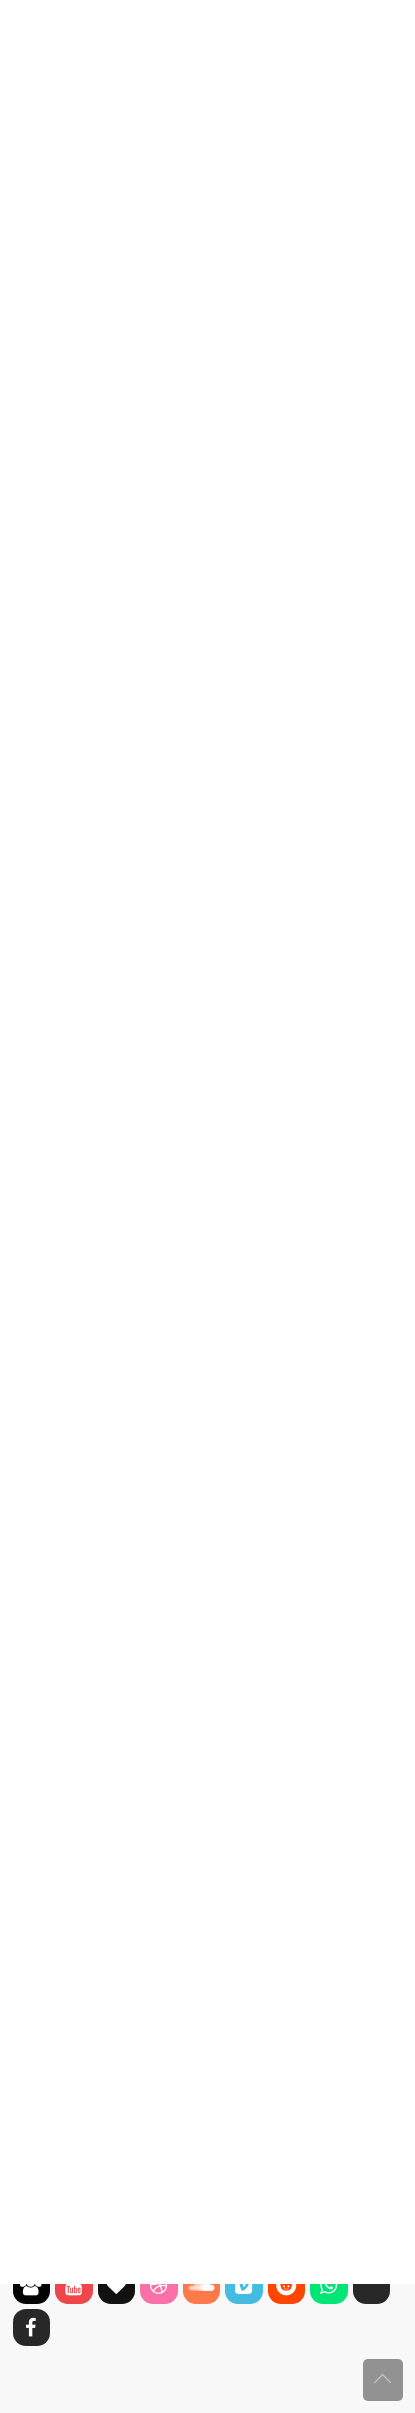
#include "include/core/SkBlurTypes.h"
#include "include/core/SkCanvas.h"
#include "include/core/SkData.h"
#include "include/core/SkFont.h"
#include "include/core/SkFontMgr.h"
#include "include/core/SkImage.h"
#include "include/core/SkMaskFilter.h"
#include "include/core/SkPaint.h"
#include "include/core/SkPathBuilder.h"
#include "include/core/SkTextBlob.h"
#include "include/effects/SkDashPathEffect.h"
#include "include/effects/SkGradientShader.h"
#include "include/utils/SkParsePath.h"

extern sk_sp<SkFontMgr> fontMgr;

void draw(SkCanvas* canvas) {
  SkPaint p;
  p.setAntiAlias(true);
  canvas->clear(SkColorSetRGB(248, 248, 248));
  p.setColor(SkColorSetRGB(3, 3, 3));
  canvas->drawRoundRect(SkRect::MakeLTRB(13, 2266, 50, 2304), 13, 13, p);
  p.setColor(SkColorSetRGB(239, 70, 75));
  canvas->drawRoundRect(SkRect::MakeLTRB(55, 2266, 93, 2304), 13, 13, p);
  p.setColor(SkColorSetRGB(17, 17, 17));
  canvas->drawRoundRect(SkRect::MakeLTRB(98, 2266, 135, 2304), 13, 13, p);
  p.setColor(SkColorSetRGB(251, 112, 166));
  canvas->drawRoundRect(SkRect::MakeLTRB(140, 2266, 178, 2304), 13, 13, p);
  p.setColor(SkColorSetRGB(253, 121, 74));
  canvas->drawRoundRect(SkRect::MakeLTRB(183, 2266, 220, 2304), 13, 13, p);
  p.setColor(SkColorSetRGB(68, 187, 225));
  canvas->drawRoundRect(SkRect::MakeLTRB(225, 2266, 263, 2304), 13, 13, p);
  p.setColor(SkColorSetRGB(255, 69, 0));
  canvas->drawRoundRect(SkRect::MakeLTRB(268, 2266, 305, 2304), 13, 13, p);
  p.setColor(SkColorSetRGB(0, 230, 118));
  canvas->drawRoundRect(SkRect::MakeLTRB(310, 2266, 348, 2304), 13, 13, p);
  p.setColor(SkColorSetRGB(40, 40, 40));
  canvas->drawRoundRect(SkRect::MakeLTRB(353, 2266, 390, 2304), 13, 13, p);
  p.setColor(SK_ColorWHITE);
  canvas->drawRect(SkRect::MakeLTRB(0, 0, 415, 2284), p);
  canvas->drawImageRect(SkImages::DeferredFromEncodedData(SkData::MakeFromFileName("images/1.png")), SkRect::MakeLTRB(20, 2284, 42, 2296), SkSamplingOptions());
  canvas->drawImageRect(SkImages::DeferredFromEncodedData(SkData::MakeFromFileName("images/2.png")), SkRect::MakeLTRB(65, 2284, 82, 2296), SkSamplingOptions());
  canvas->drawImageRect(SkImages::DeferredFromEncodedData(SkData::MakeFromFileName("images/3.png")), SkRect::MakeLTRB(106, 2284, 126, 2294), SkSamplingOptions());
  canvas->drawImageRect(SkImages::DeferredFromEncodedData(SkData::MakeFromFileName("images/4.png")), SkRect::MakeLTRB(150, 2284, 168, 2294), SkSamplingOptions());
  canvas->drawImageRect(SkImages::DeferredFromEncodedData(SkData::MakeFromFileName("images/5.png")), SkRect::MakeLTRB(188, 2284, 215, 2291), SkSamplingOptions());
  canvas->drawImageRect(SkImages::DeferredFromEncodedData(SkData::MakeFromFileName("images/6.png")), SkRect::MakeLTRB(235, 2284, 253, 2294), SkSamplingOptions());
  canvas->drawImageRect(SkImages::DeferredFromEncodedData(SkData::MakeFromFileName("images/7.png")), SkRect::MakeLTRB(276, 2284, 297, 2296), SkSamplingOptions());
  canvas->drawImageRect(SkImages::DeferredFromEncodedData(SkData::MakeFromFileName("images/8.png")), SkRect::MakeLTRB(320, 2284, 338, 2294), SkSamplingOptions());
  p.setColor(SkColorSetRGB(40, 40, 40));
  canvas->drawRoundRect(SkRect::MakeLTRB(13, 2309, 50, 2346), 13, 13, p);
  canvas->drawImageRect(SkImages::DeferredFromEncodedData(SkData::MakeFromFileName("images/9.png")), SkRect::MakeLTRB(26, 2317, 36, 2337), SkSamplingOptions());
  p.setColor(SkColorSetRGB(146, 146, 146));
  canvas->drawRoundRect(SkRect::MakeLTRB(363, 2359, 403, 2401), 5, 5, p);
  canvas->drawImageRect(SkImages::DeferredFromEncodedData(SkData::MakeFromFileName("images/10.png")), SkRect::MakeLTRB(374, 2374, 392, 2384), SkSamplingOptions());
}
